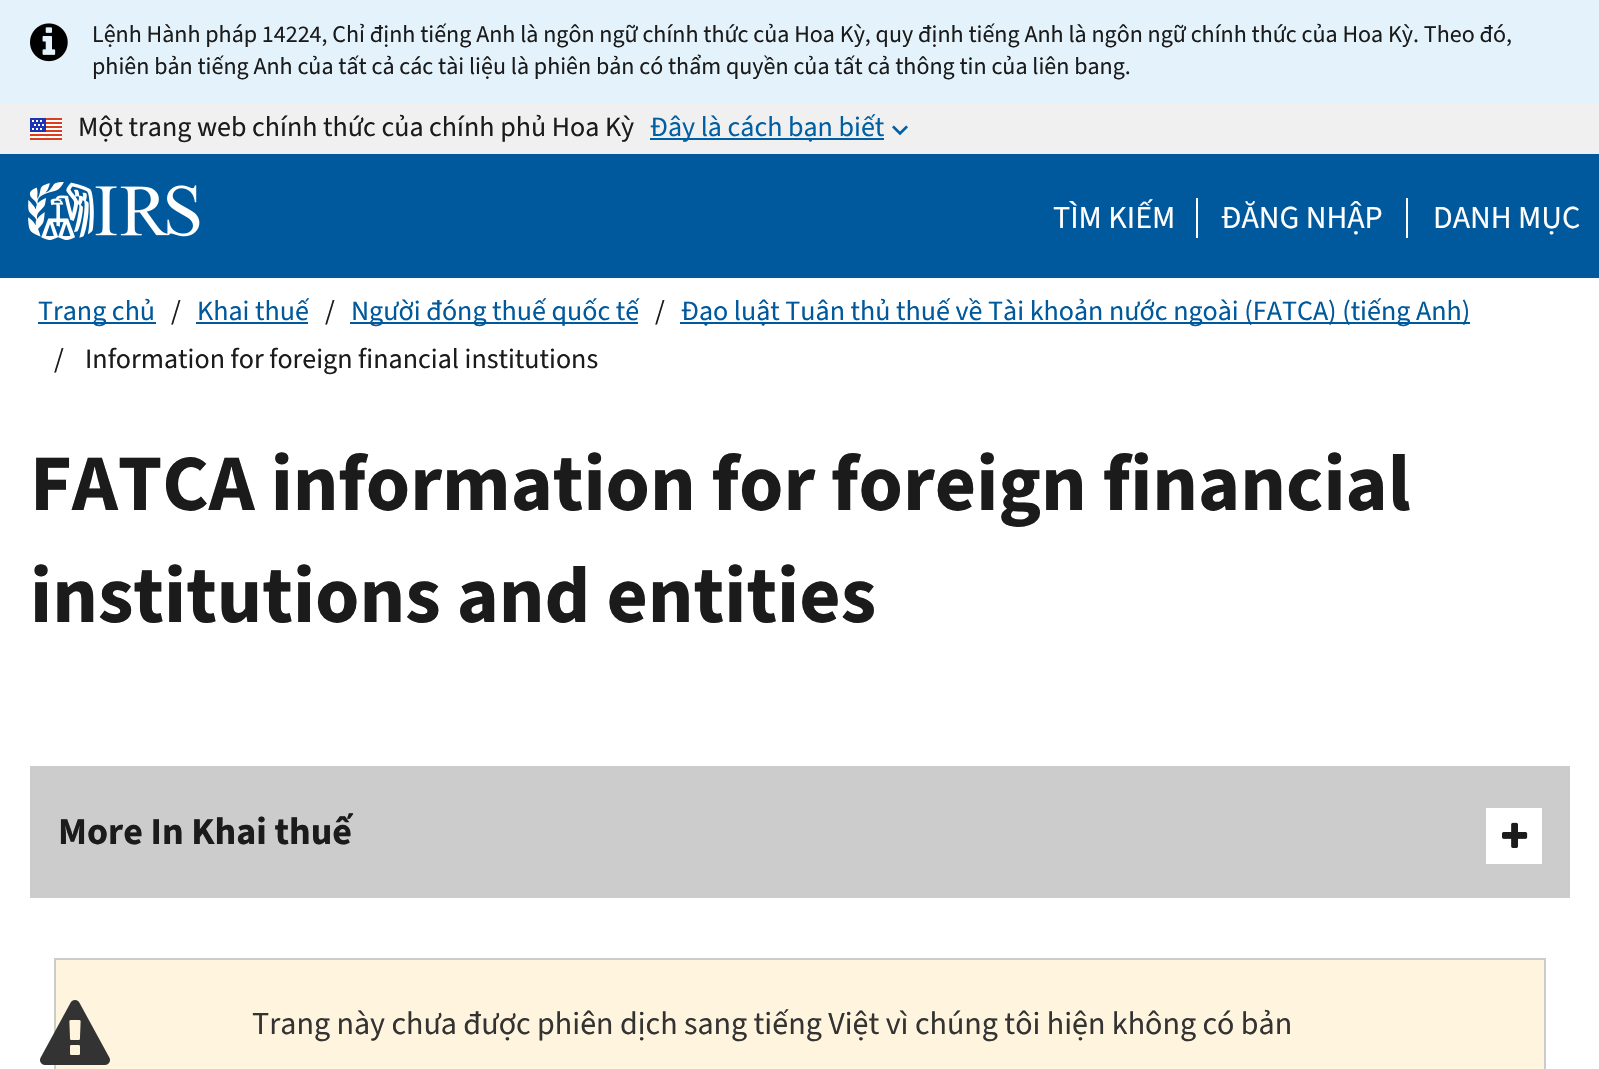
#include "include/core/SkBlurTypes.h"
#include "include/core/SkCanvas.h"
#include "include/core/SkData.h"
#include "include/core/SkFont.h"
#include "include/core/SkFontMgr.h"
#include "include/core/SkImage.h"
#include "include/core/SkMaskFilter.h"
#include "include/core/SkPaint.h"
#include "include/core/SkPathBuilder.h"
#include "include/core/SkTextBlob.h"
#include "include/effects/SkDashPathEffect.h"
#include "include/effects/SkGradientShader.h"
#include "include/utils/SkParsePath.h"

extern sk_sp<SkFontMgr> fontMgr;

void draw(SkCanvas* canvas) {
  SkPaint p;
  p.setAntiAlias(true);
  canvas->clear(SK_ColorWHITE);
  p.setColor(SkColorSetRGB(240, 240, 240));
  canvas->drawRect(SkRect::MakeLTRB(0, 104, 1599, 154), p);
  p.setColor(SkColorSetRGB(228, 243, 251));
  canvas->drawRect(SkRect::MakeLTRB(0, 0, 1599, 104), p);
  canvas->drawImageRect(SkImages::DeferredFromEncodedData(SkData::MakeFromFileName("images/1.png")), SkRect::MakeLTRB(30, 23, 68, 62), SkSamplingOptions());
  canvas->drawImageRect(SkImages::DeferredFromEncodedData(SkData::MakeFromFileName("images/2.png")), SkRect::MakeLTRB(30, 118, 62, 140), SkSamplingOptions());
  p.setColor(SkColorSetRGB(0, 94, 162));
  canvas->drawRect(SkRect::MakeLTRB(650, 138, 884, 140), p);
  canvas->drawImageRect(SkImages::DeferredFromEncodedData(SkData::MakeFromFileName("images/3.png")), SkRect::MakeLTRB(892, 125, 908, 136), SkSamplingOptions());
  p.setColor(SkColorSetRGB(0, 89, 156));
  canvas->drawRect(SkRect::MakeLTRB(0, 154, 1599, 278), p);
  canvas->drawImageRect(SkImages::DeferredFromEncodedData(SkData::MakeFromFileName("images/4.png")), SkRect::MakeLTRB(28, 182, 200, 240), SkSamplingOptions());
  p.setColor(SK_ColorWHITE);
  canvas->drawRect(SkRect::MakeLTRB(1196, 198, 1198, 238), p);
  canvas->drawRect(SkRect::MakeLTRB(1406, 198, 1408, 238), p);
  p.setColor(SkColorSetRGB(0, 89, 156));
  canvas->drawRect(SkRect::MakeLTRB(38, 322, 156, 324), p);
  canvas->drawRect(SkRect::MakeLTRB(196, 322, 308, 324), p);
  canvas->drawRect(SkRect::MakeLTRB(350, 322, 638, 324), p);
  canvas->drawRect(SkRect::MakeLTRB(680, 322, 1470, 324), p);
  p.setColor(SkColorSetRGB(204, 204, 204));
  canvas->drawRect(SkRect::MakeLTRB(30, 766, 1570, 898), p);
  p.setColor(SK_ColorWHITE);
  canvas->drawRect(SkRect::MakeLTRB(1486, 808, 1542, 864), p);
  canvas->drawImageRect(SkImages::DeferredFromEncodedData(SkData::MakeFromFileName("images/5.png")), SkRect::MakeLTRB(1502, 822, 1528, 848), SkSamplingOptions());
  p.setColor(SkColorSetRGB(255, 244, 221));
  canvas->drawRect(SkRect::MakeLTRB(55, 959, 1545, 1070), p);
  p.setStyle(SkPaint::kStroke_Style);
  p.setStrokeWidth(2);
  p.setColor(SkColorSetRGB(204, 204, 204));
  canvas->drawRect(SkRect::MakeLTRB(55, 959, 1545, 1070), p);
  canvas->drawImageRect(SkImages::DeferredFromEncodedData(SkData::MakeFromFileName("images/6.png")), SkRect::MakeLTRB(40, 1000, 110, 1065), SkSamplingOptions());
  SkFont font1(fontMgr->matchFamilyStyle("Source Sans 3", SkFontStyle::Normal()), 24);
  font1.setSubpixel(true);
  p.setStyle(SkPaint::kFill_Style);
  p.setColor(SkColorSetRGB(27, 27, 27));
  canvas->drawString("Lệnh Hành pháp 14224, Chỉ định tiếng Anh là ngôn ngữ chính thức của Hoa Kỳ, quy định tiếng Anh là ngôn ngữ chính thức của Hoa Kỳ. Theo đó,", 92, 42, font1, p);
  canvas->drawString("phiên bản tiếng Anh của tất cả các tài liệu là phiên bản có thẩm quyền của tất cả thông tin của liên bang.", 92, 74, font1, p);
  SkFont font2(fontMgr->matchFamilyStyle("Source Sans 3", SkFontStyle::Normal()), 28);
  font2.setSubpixel(true);
  canvas->drawString("Một trang web chính thức của chính phủ Hoa Kỳ", 78, 136, font2, p);
  p.setColor(SkColorSetRGB(0, 94, 162));
  canvas->drawString("Đây là cách bạn biết", 650, 136, font2, p);
  SkFont font3(fontMgr->matchFamilyStyle("Source Sans 3", SkFontStyle::Normal()), 32);
  font3.setSubpixel(true);
  p.setColor(SK_ColorWHITE);
  canvas->drawString("TÌM KIẾM", 1053, 228, font3, p);
  canvas->drawString("ĐĂNG NHẬP", 1221, 228, font3, p);
  canvas->drawString("DANH MỤC", 1433, 228, font3, p);
  p.setColor(SkColorSetRGB(0, 89, 156));
  canvas->drawString("Trang chủ", 38, 320, font2, p);
  p.setColor(SkColorSetRGB(27, 27, 27));
  canvas->drawString("/", 171, 320, font2, p);
  p.setColor(SkColorSetRGB(0, 89, 156));
  canvas->drawString("Khai thuế", 197, 320, font2, p);
  p.setColor(SkColorSetRGB(27, 27, 27));
  canvas->drawString("/", 325, 320, font2, p);
  p.setColor(SkColorSetRGB(0, 89, 156));
  canvas->drawString("Người đóng thuế quốc tế", 351, 320, font2, p);
  p.setColor(SkColorSetRGB(27, 27, 27));
  canvas->drawString("/", 655, 320, font2, p);
  p.setColor(SkColorSetRGB(0, 89, 156));
  canvas->drawString("Đạo luật Tuân thủ thuế về Tài khoản nước ngoài (FATCA) (tiếng Anh)", 681, 320, font2, p);
  p.setColor(SkColorSetRGB(27, 27, 27));
  canvas->drawString("/", 54, 368, font2, p);
  canvas->drawString("Information for foreign financial institutions", 85, 368, font2, p);
  SkFont font4(fontMgr->matchFamilyStyle("Source Sans 3", SkFontStyle::Bold()), 80);
  font4.setSubpixel(true);
  canvas->drawString("FATCA information for foreign financial", 30, 510, font4, p);
  canvas->drawString("institutions and entities", 30, 622, font4, p);
  SkFont font5(fontMgr->matchFamilyStyle("Source Sans 3", SkFontStyle::Bold()), 38);
  font5.setSubpixel(true);
  canvas->drawString("More In Khai thuế", 58, 844, font5, p);
  p.setColor(SkColorSetRGB(51, 51, 51));
  canvas->drawString("Trang này chưa được phiên dịch sang tiếng Việt vì chúng tôi hiện không có bản", 252, 1034, font3, p);
}
